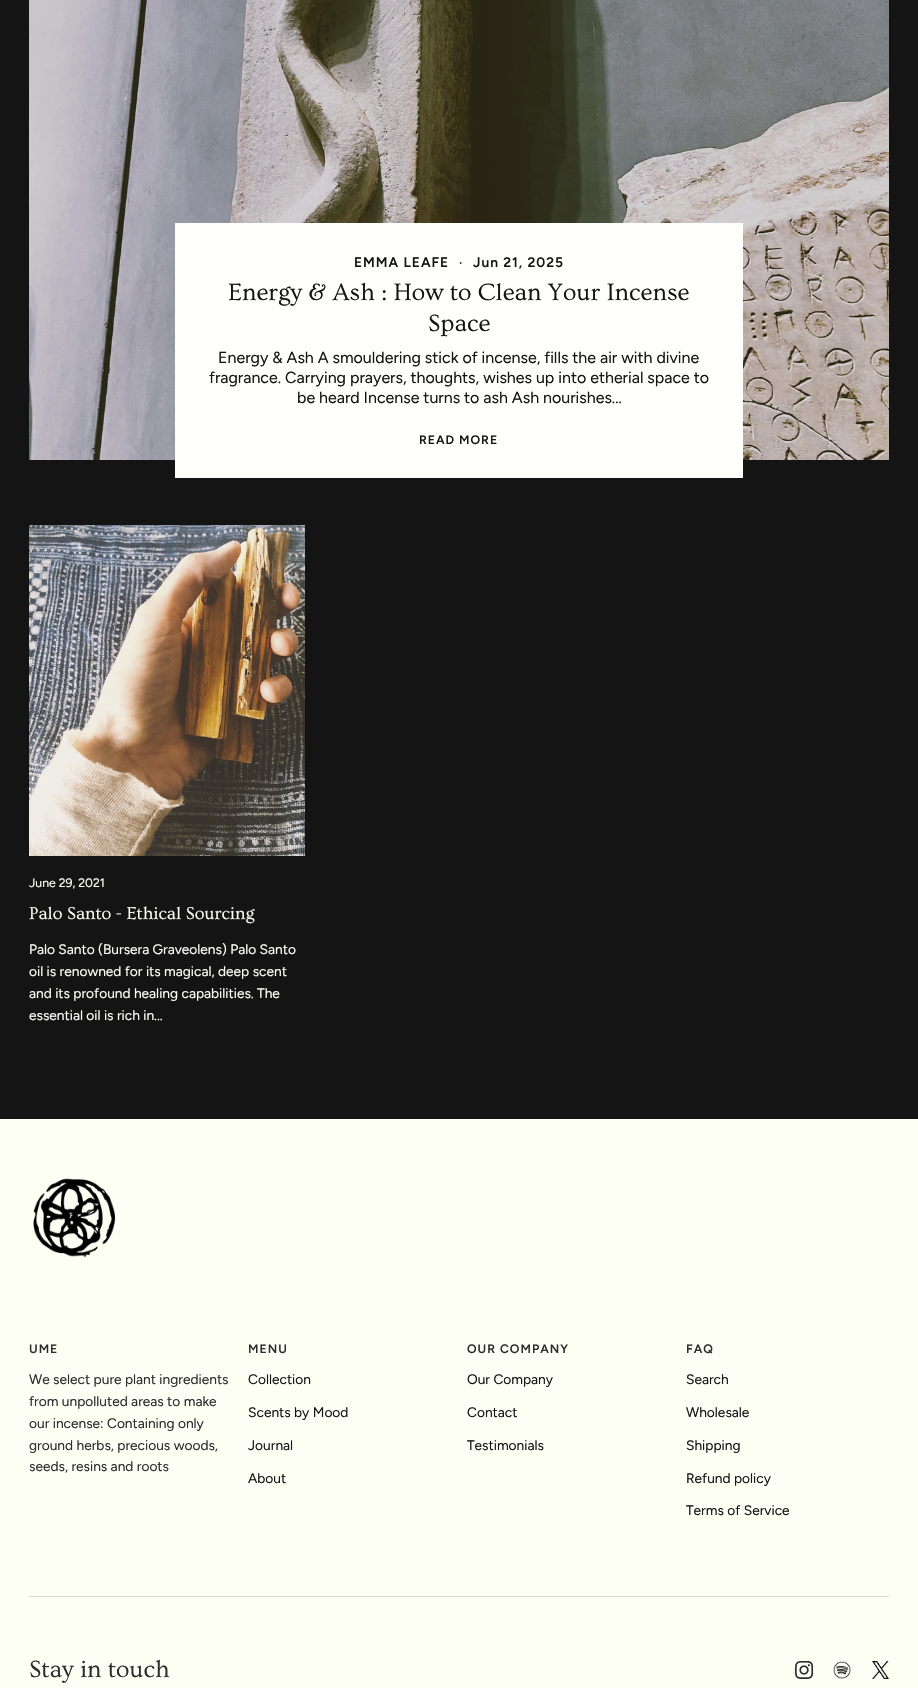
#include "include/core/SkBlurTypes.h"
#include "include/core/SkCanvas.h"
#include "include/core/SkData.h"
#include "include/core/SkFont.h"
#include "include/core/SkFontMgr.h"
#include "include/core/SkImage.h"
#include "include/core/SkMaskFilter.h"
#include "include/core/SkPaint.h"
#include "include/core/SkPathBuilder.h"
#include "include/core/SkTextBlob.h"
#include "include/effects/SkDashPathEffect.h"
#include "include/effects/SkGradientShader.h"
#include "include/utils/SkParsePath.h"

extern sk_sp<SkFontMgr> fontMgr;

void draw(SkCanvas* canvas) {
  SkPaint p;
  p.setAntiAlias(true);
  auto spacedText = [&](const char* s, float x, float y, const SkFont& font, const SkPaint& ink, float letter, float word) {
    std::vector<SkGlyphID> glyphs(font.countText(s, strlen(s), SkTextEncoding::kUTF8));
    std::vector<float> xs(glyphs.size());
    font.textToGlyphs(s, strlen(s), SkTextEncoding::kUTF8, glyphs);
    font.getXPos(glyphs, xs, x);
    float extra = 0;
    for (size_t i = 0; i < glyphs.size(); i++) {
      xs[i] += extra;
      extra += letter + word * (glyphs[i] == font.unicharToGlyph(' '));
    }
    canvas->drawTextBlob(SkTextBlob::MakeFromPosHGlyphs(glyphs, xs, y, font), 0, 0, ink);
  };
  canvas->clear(SkColorSetRGB(20, 20, 20));
  canvas->drawImageRect(SkImages::DeferredFromEncodedData(SkData::MakeFromFileName("images/1.png")), SkRect::MakeLTRB(29, 0, 889, 460), SkSamplingOptions());
  p.setColor(SkColorSetRGB(254, 254, 250));
  canvas->drawRect(SkRect::MakeLTRB(175, 223, 743, 478), p);
  canvas->drawImageRect(SkImages::DeferredFromEncodedData(SkData::MakeFromFileName("images/2.png")), SkRect::MakeLTRB(29, 525, 305, 856), SkSamplingOptions());
  p.setColor(SkColorSetRGB(253, 255, 245));
  canvas->drawRect(SkRect::MakeLTRB(0, 1119, 918, 1688), p);
  canvas->drawImageRect(SkImages::DeferredFromEncodedData(SkData::MakeFromFileName("images/3.png")), SkRect::MakeLTRB(33, 1178, 116, 1258), SkSamplingOptions());
  p.setColor(SkColorSetRGB(218, 220, 211));
  canvas->drawRect(SkRect::MakeLTRB(29, 1596, 889, 1597), p);
  canvas->drawImageRect(SkImages::DeferredFromEncodedData(SkData::MakeFromFileName("images/4.png")), SkRect::MakeLTRB(795, 1661, 813, 1679), SkSamplingOptions());
  canvas->drawImageRect(SkImages::DeferredFromEncodedData(SkData::MakeFromFileName("images/5.png")), SkRect::MakeLTRB(833, 1661, 851, 1679), SkSamplingOptions());
  canvas->drawImageRect(SkImages::DeferredFromEncodedData(SkData::MakeFromFileName("images/6.png")), SkRect::MakeLTRB(872, 1661, 889, 1679), SkSamplingOptions());
  SkFont font1(fontMgr->matchFamilyStyle("Figtree", SkFontStyle(600, SkFontStyle::kNormal_Width, SkFontStyle::kUpright_Slant)), 13.75f);
  font1.setSubpixel(true);
  p.setColor(SkColorSetRGB(20, 20, 20));
  spacedText("EMMA LEAFE", 354, 267, font1, p, 1, 0);
  SkFont font2(fontMgr->matchFamilyStyle("Figtree", SkFontStyle(600, SkFontStyle::kNormal_Width, SkFontStyle::kUpright_Slant)), 7);
  font2.setSubpixel(true);
  spacedText("•", 459, 265, font2, p, 1, 0);
  spacedText("Jun 21, 2025", 473, 267, font1, p, 1, 0);
  SkFont font3(fontMgr->matchFamilyStyle("Ovo", SkFontStyle::Normal()), 24.75f);
  font3.setSubpixel(true);
  canvas->drawString("Energy & Ash : How to Clean Your Incense", 228, 300, font3, p);
  canvas->drawString("Space", 428, 331, font3, p);
  SkFont font4(fontMgr->matchFamilyStyle("Figtree", SkFontStyle::Normal()), 16);
  font4.setSubpixel(true);
  canvas->drawString("Energy & Ash A smouldering stick of incense, fills the air with divine", 218, 363, font4, p);
  canvas->drawString("fragrance. Carrying prayers, thoughts, wishes up into etherial space to", 209, 383, font4, p);
  canvas->drawString("be heard Incense turns to ash Ash nourishes...", 297, 403, font4, p);
  SkFont font5(fontMgr->matchFamilyStyle("Figtree", SkFontStyle(600, SkFontStyle::kNormal_Width, SkFontStyle::kUpright_Slant)), 12.25f);
  font5.setSubpixel(true);
  spacedText("READ MORE", 419, 444, font5, p, 1, 0);
  SkFont font6(fontMgr->matchFamilyStyle("Figtree", SkFontStyle::Normal()), 12.25f);
  font6.setSubpixel(true);
  p.setColor(SkColorSetRGB(254, 254, 250));
  canvas->drawString("June 29, 2021", 29, 887, font6, p);
  SkFont font7(fontMgr->matchFamilyStyle("Ovo", SkFontStyle::Normal()), 18);
  font7.setSubpixel(true);
  canvas->drawString("Palo Santo - Ethical Sourcing", 29, 919, font7, p);
  SkFont font8(fontMgr->matchFamilyStyle("Figtree", SkFontStyle::Normal()), 13.75f);
  font8.setSubpixel(true);
  canvas->drawString("Palo Santo (Bursera Graveolens) Palo Santo", 29, 954, font8, p);
  canvas->drawString("oil is renowned for its magical, deep scent", 29, 976, font8, p);
  canvas->drawString("and its profound healing capabilities. The", 29, 998, font8, p);
  canvas->drawString("essential oil is rich in...", 29, 1020, font8, p);
  p.setColor(SkColorSetRGB(43, 44, 43));
  spacedText("UME", 29, 1353, font5, p, 1, 0);
  canvas->drawString("We select pure plant ingredients", 29, 1384, font8, p);
  canvas->drawString("from unpolluted areas to make", 29, 1406, font8, p);
  canvas->drawString("our incense: Containing only", 29, 1428, font8, p);
  canvas->drawString("ground herbs, precious woods,", 29, 1450, font8, p);
  canvas->drawString("seeds, resins and roots", 29, 1471, font8, p);
  spacedText("MENU", 248, 1353, font5, p, 1, 0);
  p.setColor(SkColorSetRGB(20, 20, 20));
  canvas->drawString("Collection", 248, 1384, font8, p);
  canvas->drawString("Scents by Mood", 248, 1417, font8, p);
  canvas->drawString("Journal", 248, 1450, font8, p);
  canvas->drawString("About", 248, 1483, font8, p);
  p.setColor(SkColorSetRGB(43, 44, 43));
  spacedText("OUR COMPANY", 467, 1353, font5, p, 1, 0);
  p.setColor(SkColorSetRGB(20, 20, 20));
  canvas->drawString("Our Company", 467, 1384, font8, p);
  canvas->drawString("Contact", 467, 1417, font8, p);
  canvas->drawString("Testimonials", 467, 1450, font8, p);
  p.setColor(SkColorSetRGB(43, 44, 43));
  spacedText("FAQ", 686, 1353, font5, p, 1, 0);
  p.setColor(SkColorSetRGB(20, 20, 20));
  canvas->drawString("Search", 686, 1384, font8, p);
  canvas->drawString("Wholesale", 686, 1417, font8, p);
  canvas->drawString("Shipping", 686, 1450, font8, p);
  canvas->drawString("Refund policy", 686, 1483, font8, p);
  canvas->drawString("Terms of Service", 686, 1515, font8, p);
  p.setColor(SkColorSetRGB(43, 44, 43));
  canvas->drawString("Stay in touch", 29, 1677, font3, p);
}
